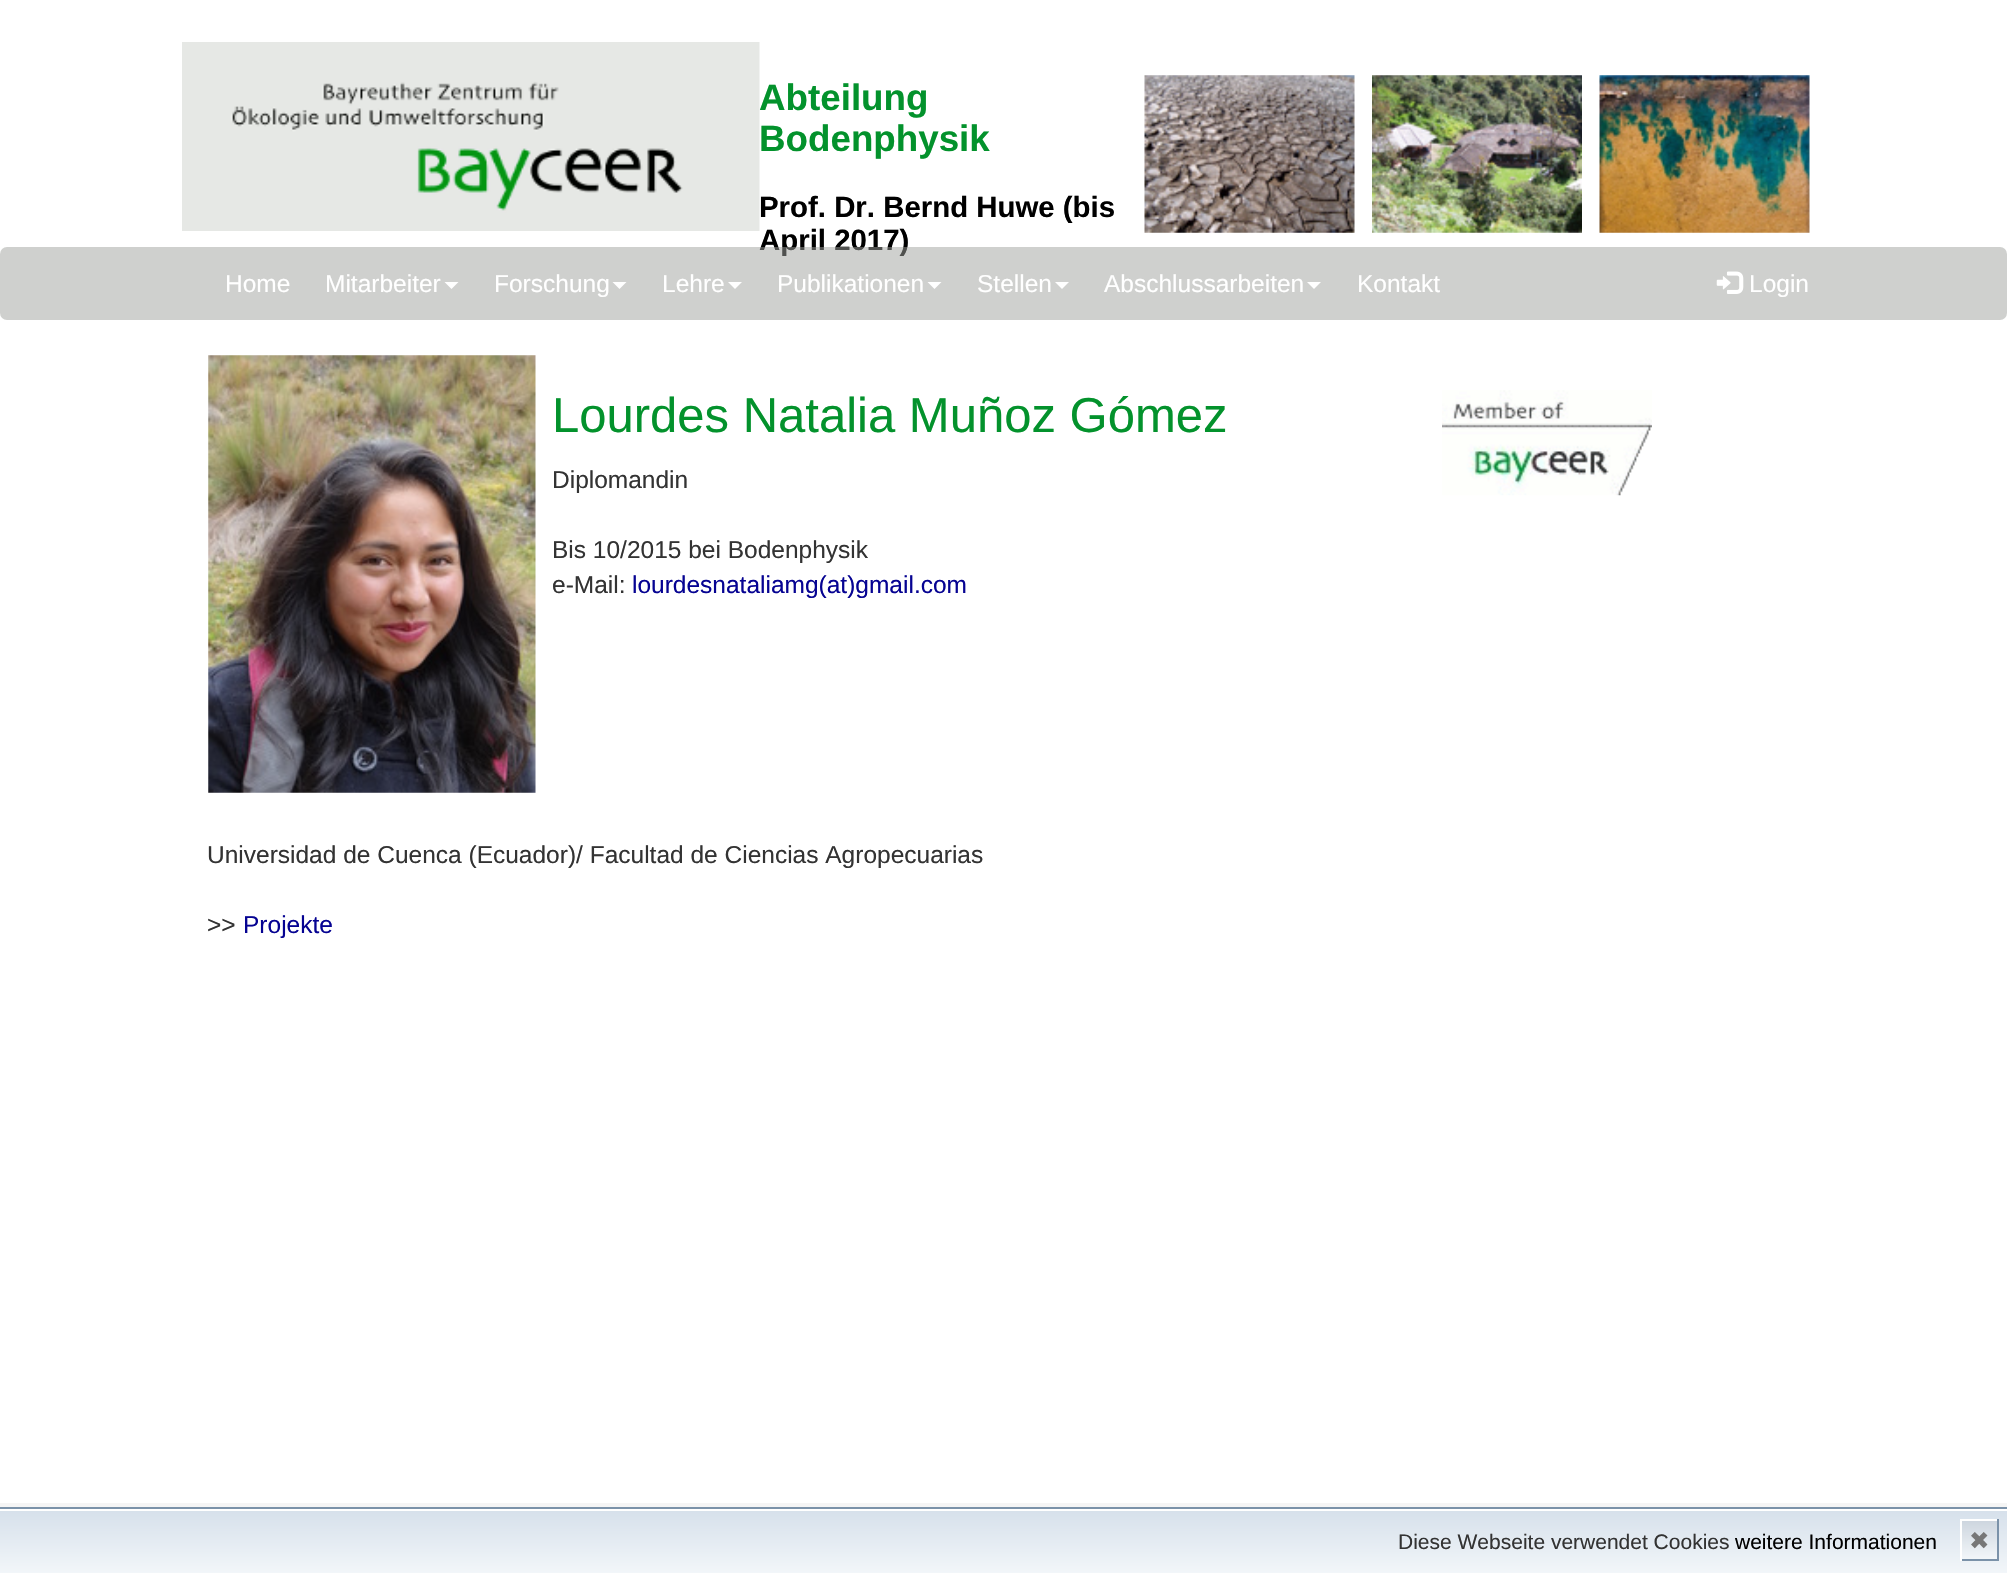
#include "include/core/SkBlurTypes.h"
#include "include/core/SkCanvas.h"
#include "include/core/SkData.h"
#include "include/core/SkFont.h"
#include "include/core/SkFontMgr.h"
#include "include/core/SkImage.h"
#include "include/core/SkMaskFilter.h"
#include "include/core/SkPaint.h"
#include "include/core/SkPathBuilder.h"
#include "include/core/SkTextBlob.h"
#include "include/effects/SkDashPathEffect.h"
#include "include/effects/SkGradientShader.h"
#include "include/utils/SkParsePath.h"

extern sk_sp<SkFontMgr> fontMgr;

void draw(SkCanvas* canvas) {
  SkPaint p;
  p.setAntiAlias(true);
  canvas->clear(SK_ColorWHITE);
  canvas->drawImageRect(SkImages::DeferredFromEncodedData(SkData::MakeFromFileName("images/1.png")), SkRect::MakeLTRB(182, 42, 760, 231), SkSamplingOptions());
  canvas->drawImageRect(SkImages::DeferredFromEncodedData(SkData::MakeFromFileName("images/2.png")), SkRect::MakeLTRB(1144, 75, 1355, 233), SkSamplingOptions());
  canvas->drawImageRect(SkImages::DeferredFromEncodedData(SkData::MakeFromFileName("images/3.png")), SkRect::MakeLTRB(1372, 75, 1582, 233), SkSamplingOptions());
  canvas->drawImageRect(SkImages::DeferredFromEncodedData(SkData::MakeFromFileName("images/4.png")), SkRect::MakeLTRB(1599, 75, 1810, 233), SkSamplingOptions());
  canvas->drawImageRect(SkImages::DeferredFromEncodedData(SkData::MakeFromFileName("images/6.png")), SkRect::MakeLTRB(208, 355, 536, 793), SkSamplingOptions());
  canvas->drawImageRect(SkImages::DeferredFromEncodedData(SkData::MakeFromFileName("images/7.png")), SkRect::MakeLTRB(1442, 390, 1652, 496), SkSamplingOptions());
  p.setColor(SkColorSetRGB(245, 245, 245));
  canvas->drawRect(SkRect::MakeLTRB(0, 1503, 2007, 1507), p);
  {
    const SkColor colors[] = {SkColorSetRGB(214, 224, 235), SkColorSetRGB(242, 246, 249)};
    const float stops[] = {0, 1};
    const SkPoint ends[] = {{1004, 1510}, {1004, 1573}};
    p.setShader(SkGradientShader::MakeLinear(ends, colors, stops, 2, SkTileMode::kClamp));
    p.setAlpha(255);
  }
  canvas->drawRect(SkRect::MakeLTRB(0, 1511, 2007, 1573), p);
  p.setStyle(SkPaint::kStroke_Style);
  p.setStrokeWidth(2);
  p.setShader(nullptr);
  p.setColor(SkColorSetRGB(123, 146, 169));
  canvas->drawRect(SkRect::MakeLTRB(-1, 1508, 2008, 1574), p);
  p.setStyle(SkPaint::kFill_Style);
  {
    const SkColor colors[] = {SkColorSetRGB(206, 214, 223), SkColorSetRGB(242, 246, 249)};
    const float stops[] = {0, 1};
    const SkPoint ends[] = {{1979, 1521}, {1979, 1559}};
    p.setShader(SkGradientShader::MakeLinear(ends, colors, stops, 2, SkTileMode::kClamp));
    p.setAlpha(255);
  }
  canvas->drawRect(SkRect::MakeLTRB(1962, 1521, 1997, 1559), p);
  p.setShader(nullptr);
  p.setColor(SK_ColorWHITE);
  canvas->drawRect(SkRect::MakeLTRB(1960, 1519, 1999, 1521), p);
  p.setColor(SkColorSetRGB(123, 146, 169));
  canvas->drawRect(SkRect::MakeLTRB(1997, 1519, 1999, 1561), p);
  canvas->drawRect(SkRect::MakeLTRB(1960, 1559, 1999, 1561), p);
  p.setColor(SK_ColorWHITE);
  canvas->drawRect(SkRect::MakeLTRB(1960, 1519, 1962, 1561), p);
  SkFont font1(fontMgr->matchFamilyStyle("Liberation Sans", SkFontStyle::Bold()), 36.75f);
  font1.setSubpixel(true);
  p.setColor(SkColorSetRGB(3, 146, 44));
  canvas->drawString("Abteilung", 759, 110, font1, p);
  canvas->drawString("Bodenphysik", 759, 151, font1, p);
  SkFont font2(fontMgr->matchFamilyStyle("Liberation Sans", SkFontStyle::Bold()), 29.4f);
  font2.setSubpixel(true);
  p.setColor(SK_ColorBLACK);
  canvas->drawString("Prof. Dr. Bernd Huwe (bis", 759, 217, font2, p);
  canvas->drawString("April 2017)", 759, 250, font2, p);
  p.setColor(SkColorSetARGB(128, 159, 161, 158));
  canvas->drawRoundRect(SkRect::MakeLTRB(0, 247, 2007, 320), 7, 7, p);
  SkFont font3(fontMgr->matchFamilyStyle("Liberation Sans", SkFontStyle::Normal()), 24.5f);
  font3.setSubpixel(true);
  p.setColor(SK_ColorWHITE);
  canvas->drawString("Home", 225, 292, font3, p);
  canvas->drawString("Mitarbeiter", 325, 292, font3, p);
  canvas->drawPath(SkPathBuilder().moveTo(444.5f, 282).lineTo(458.5f, 282).lineTo(451.5f, 289).close().detach(), p);
  canvas->drawString("Forschung", 494, 292, font3, p);
  canvas->drawPath(SkPathBuilder().moveTo(612.5f, 282).lineTo(626.5f, 282).lineTo(619.5f, 289).close().detach(), p);
  canvas->drawString("Lehre", 662, 292, font3, p);
  canvas->drawPath(SkPathBuilder().moveTo(728, 282).lineTo(742, 282).lineTo(735, 289).close().detach(), p);
  canvas->drawString("Publikationen", 777, 292, font3, p);
  canvas->drawPath(SkPathBuilder().moveTo(927.5f, 282).lineTo(941.5f, 282).lineTo(934.5f, 289).close().detach(), p);
  canvas->drawString("Stellen", 977, 292, font3, p);
  canvas->drawPath(SkPathBuilder().moveTo(1055, 282).lineTo(1069, 282).lineTo(1062, 289).close().detach(), p);
  canvas->drawString("Abschlussarbeiten", 1104, 292, font3, p);
  canvas->drawPath(SkPathBuilder().moveTo(1307, 282).lineTo(1321, 282).lineTo(1314, 289).close().detach(), p);
  canvas->drawString("Kontakt", 1357, 292, font3, p);
  canvas->drawImageRect(SkImages::DeferredFromEncodedData(SkData::MakeFromFileName("images/5.png")), SkRect::MakeLTRB(1716, 271, 1744, 294), SkSamplingOptions());
  canvas->drawString("Login", 1749, 292, font3, p);
  SkFont font4(fontMgr->matchFamilyStyle("Liberation Sans", SkFontStyle::Normal()), 49);
  font4.setSubpixel(true);
  p.setColor(SkColorSetRGB(3, 146, 44));
  canvas->drawString("Lourdes Natalia Muñoz Gómez", 552, 432, font4, p);
  p.setColor(SkColorSetRGB(51, 51, 51));
  canvas->drawString("Diplomandin", 552, 488, font3, p);
  canvas->drawString("Bis 10/2015 bei Bodenphysik", 552, 558, font3, p);
  canvas->drawString("e-Mail:", 552, 593, font3, p);
  p.setColor(SkColorSetRGB(6, 3, 146));
  canvas->drawString("lourdesnataliamg(at)gmail.com", 632, 593, font3, p);
  p.setColor(SkColorSetRGB(51, 51, 51));
  canvas->drawString("Universidad de Cuenca (Ecuador)/ Facultad de Ciencias Agropecuarias", 207, 863, font3, p);
  canvas->drawString(">>", 207, 933, font3, p);
  p.setColor(SkColorSetRGB(6, 3, 146));
  canvas->drawString("Projekte", 243, 933, font3, p);
  SkFont font5(fontMgr->matchFamilyStyle("Liberation Sans", SkFontStyle::Normal()), 21);
  font5.setSubpixel(true);
  p.setColor(SkColorSetRGB(51, 51, 51));
  canvas->drawString("Diese Webseite verwendet Cookies", 1398, 1549, font5, p);
  p.setColor(SK_ColorBLACK);
  canvas->drawString("weitere Informationen", 1735, 1549, font5, p);
  SkFont font6(fontMgr->matchFamilyStyle("DejaVu Sans", SkFontStyle::Normal()), 24.5f);
  font6.setSubpixel(true);
  p.setColor(SkColorSetRGB(119, 119, 119));
  canvas->drawString("✖", 1969, 1549, font6, p);
}
